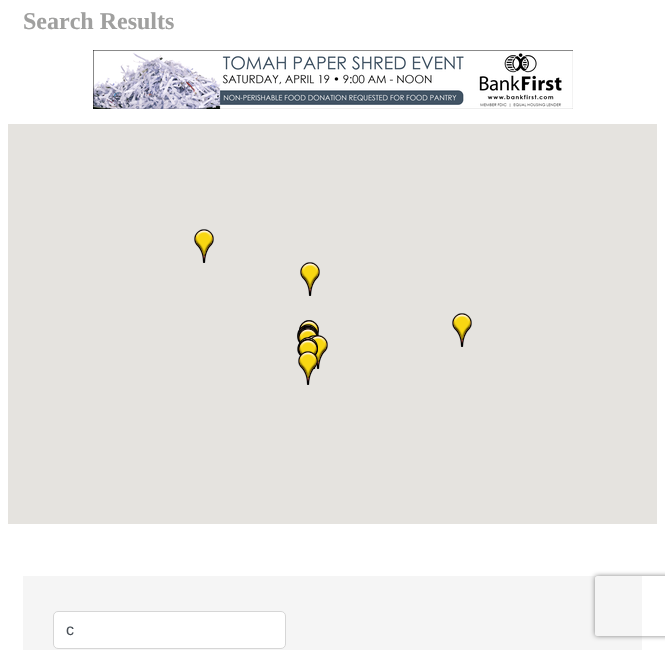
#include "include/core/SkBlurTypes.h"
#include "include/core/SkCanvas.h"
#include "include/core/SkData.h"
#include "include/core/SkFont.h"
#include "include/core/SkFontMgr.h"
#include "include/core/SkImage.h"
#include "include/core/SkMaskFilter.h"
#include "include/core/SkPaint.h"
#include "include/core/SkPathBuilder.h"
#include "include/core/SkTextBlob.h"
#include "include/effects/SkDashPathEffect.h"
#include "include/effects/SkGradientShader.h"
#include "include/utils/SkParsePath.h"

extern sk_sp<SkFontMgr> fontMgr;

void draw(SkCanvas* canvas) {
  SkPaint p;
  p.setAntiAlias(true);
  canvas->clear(SK_ColorWHITE);
  canvas->drawImageRect(SkImages::DeferredFromEncodedData(SkData::MakeFromFileName("images/1.png")), SkRect::MakeLTRB(93, 50, 573, 109), SkSamplingOptions());
  p.setColor(SkColorSetRGB(229, 227, 223));
  canvas->drawRect(SkRect::MakeLTRB(8, 124, 657, 524), p);
  canvas->drawImageRect(SkImages::DeferredFromEncodedData(SkData::MakeFromFileName("images/2.png")), SkRect::MakeLTRB(194, 229, 214, 263), SkSamplingOptions());
  canvas->drawImageRect(SkImages::DeferredFromEncodedData(SkData::MakeFromFileName("images/2.png")), SkRect::MakeLTRB(300, 262, 320, 296), SkSamplingOptions());
  canvas->drawImageRect(SkImages::DeferredFromEncodedData(SkData::MakeFromFileName("images/3.png")), SkRect::MakeLTRB(299, 320, 319, 334), SkSamplingOptions());
  canvas->drawImageRect(SkImages::DeferredFromEncodedData(SkData::MakeFromFileName("images/2.png")), SkRect::MakeLTRB(452, 313, 472, 347), SkSamplingOptions());
  canvas->drawImageRect(SkImages::DeferredFromEncodedData(SkData::MakeFromFileName("images/4.png")), SkRect::MakeLTRB(299, 320, 319, 334), SkSamplingOptions());
  canvas->drawImageRect(SkImages::DeferredFromEncodedData(SkData::MakeFromFileName("images/5.png")), SkRect::MakeLTRB(298, 324, 318, 333), SkSamplingOptions());
  canvas->drawImageRect(SkImages::DeferredFromEncodedData(SkData::MakeFromFileName("images/6.png")), SkRect::MakeLTRB(297, 325, 316, 341), SkSamplingOptions());
  canvas->drawImageRect(SkImages::DeferredFromEncodedData(SkData::MakeFromFileName("images/9.png")), SkRect::MakeLTRB(300, 326, 319, 336), SkSamplingOptions());
  canvas->drawImageRect(SkImages::DeferredFromEncodedData(SkData::MakeFromFileName("images/7.png")), SkRect::MakeLTRB(298, 326, 318, 336), SkSamplingOptions());
  canvas->drawImageRect(SkImages::DeferredFromEncodedData(SkData::MakeFromFileName("images/8.png")), SkRect::MakeLTRB(298, 326, 318, 336), SkSamplingOptions());
  canvas->drawImageRect(SkImages::DeferredFromEncodedData(SkData::MakeFromFileName("images/10.png")), SkRect::MakeLTRB(297, 327, 317, 344), SkSamplingOptions());
  canvas->drawImageRect(SkImages::DeferredFromEncodedData(SkData::MakeFromFileName("images/11.png")), SkRect::MakeLTRB(298, 327, 318, 343), SkSamplingOptions());
  canvas->drawImageRect(SkImages::DeferredFromEncodedData(SkData::MakeFromFileName("images/12.png")), SkRect::MakeLTRB(298, 328, 318, 344), SkSamplingOptions());
  canvas->drawImageRect(SkImages::DeferredFromEncodedData(SkData::MakeFromFileName("images/13.png")), SkRect::MakeLTRB(307, 335, 318, 369), SkSamplingOptions());
  canvas->drawImageRect(SkImages::DeferredFromEncodedData(SkData::MakeFromFileName("images/15.png")), SkRect::MakeLTRB(311, 335, 328, 369), SkSamplingOptions());
  canvas->drawImageRect(SkImages::DeferredFromEncodedData(SkData::MakeFromFileName("images/14.png")), SkRect::MakeLTRB(298, 337, 318, 353), SkSamplingOptions());
  canvas->drawImageRect(SkImages::DeferredFromEncodedData(SkData::MakeFromFileName("images/16.png")), SkRect::MakeLTRB(297, 339, 317, 356), SkSamplingOptions());
  canvas->drawImageRect(SkImages::DeferredFromEncodedData(SkData::MakeFromFileName("images/17.png")), SkRect::MakeLTRB(298, 339, 318, 356), SkSamplingOptions());
  canvas->drawImageRect(SkImages::DeferredFromEncodedData(SkData::MakeFromFileName("images/18.png")), SkRect::MakeLTRB(298, 339, 318, 356), SkSamplingOptions());
  canvas->drawImageRect(SkImages::DeferredFromEncodedData(SkData::MakeFromFileName("images/19.png")), SkRect::MakeLTRB(298, 339, 318, 356), SkSamplingOptions());
  canvas->drawImageRect(SkImages::DeferredFromEncodedData(SkData::MakeFromFileName("images/20.png")), SkRect::MakeLTRB(298, 351, 318, 385), SkSamplingOptions());
  p.setColor(SkColorSetRGB(245, 245, 245));
  canvas->drawRect(SkRect::MakeLTRB(23, 576, 642, 650), p);
  p.setColor(SK_ColorWHITE);
  canvas->drawRoundRect(SkRect::MakeLTRB(53.5f, 611.5f, 285.5f, 648.5f), 4.5f, 4.5f, p);
  p.setStyle(SkPaint::kStroke_Style);
  p.setStrokeWidth(1);
  p.setColor(SkColorSetRGB(214, 214, 214));
  canvas->drawRoundRect(SkRect::MakeLTRB(53.5f, 611.5f, 285.5f, 648.5f), 4.5f, 4.5f, p);
  canvas->save();
  canvas->clipPath(SkPathBuilder(SkPathFillType::kEvenOdd).moveTo(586, 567).lineTo(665, 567).lineTo(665, 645).lineTo(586, 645).close().moveTo(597, 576).lineTo(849, 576).cubicTo(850, 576, 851, 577, 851, 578).lineTo(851, 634).cubicTo(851, 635, 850, 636, 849, 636).lineTo(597, 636).cubicTo(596, 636, 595, 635, 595, 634).lineTo(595, 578).cubicTo(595, 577, 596, 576, 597, 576).close().detach(), true);
  p.setStyle(SkPaint::kFill_Style);
  p.setColor(SkColorSetRGB(128, 128, 128));
  p.setMaskFilter(SkMaskFilter::MakeBlur(kNormal_SkBlurStyle, 2.5f));
  canvas->drawRoundRect(SkRect::MakeLTRB(595, 576, 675, 636), 2, 2, p);
  p.setMaskFilter(nullptr);
  canvas->restore();
  SkFont font1(fontMgr->matchFamilyStyle("Liberation Serif", SkFontStyle::Bold()), 24);
  font1.setSubpixel(true);
  p.setColor(SkColorSetRGB(160, 160, 159));
  canvas->drawString("Search Results", 23, 29, font1, p);
  SkFont font2(fontMgr->matchFamilyStyle("Liberation Sans", SkFontStyle::Normal()), 16);
  font2.setSubpixel(true);
  p.setColor(SkColorSetRGB(73, 80, 87));
  canvas->drawString("c", 66, 635, font2, p);
}
